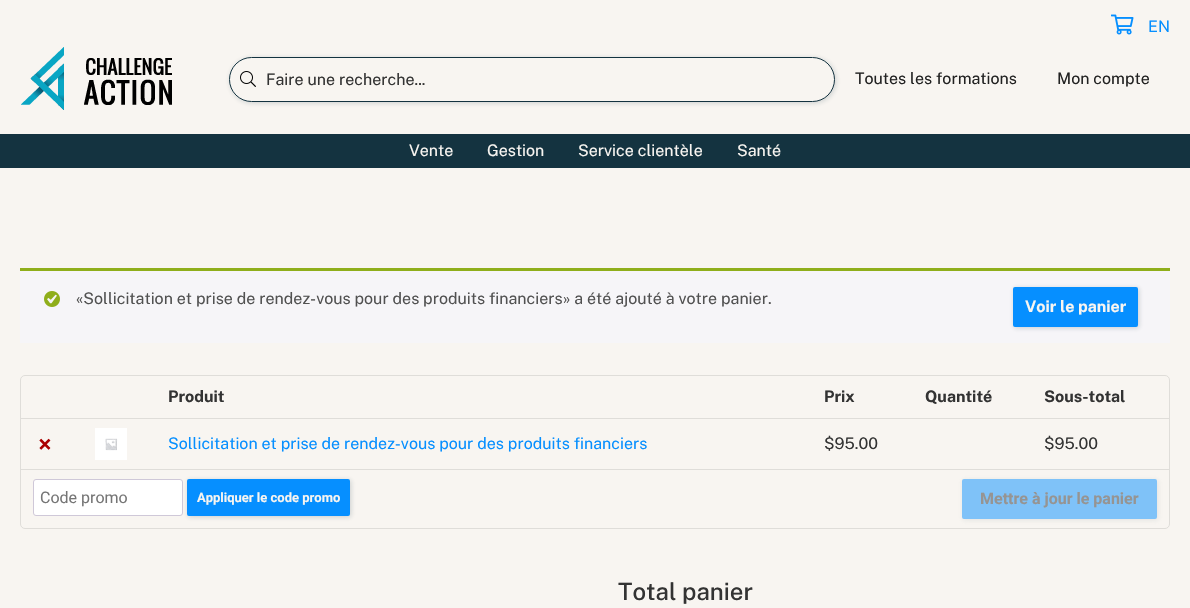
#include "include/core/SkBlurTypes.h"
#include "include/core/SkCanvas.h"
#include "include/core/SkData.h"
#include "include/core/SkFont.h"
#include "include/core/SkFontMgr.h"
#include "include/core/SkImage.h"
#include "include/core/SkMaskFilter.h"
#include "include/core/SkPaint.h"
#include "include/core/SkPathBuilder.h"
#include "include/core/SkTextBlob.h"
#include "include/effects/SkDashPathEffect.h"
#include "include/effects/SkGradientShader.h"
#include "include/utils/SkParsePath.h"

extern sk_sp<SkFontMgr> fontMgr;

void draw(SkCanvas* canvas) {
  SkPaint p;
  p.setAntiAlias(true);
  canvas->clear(SkColorSetRGB(248, 245, 241));
  canvas->drawImageRect(SkImages::DeferredFromEncodedData(SkData::MakeFromFileName("images/1.png")), SkRect::MakeLTRB(1111, 14, 1134, 35), SkSamplingOptions());
  canvas->drawImageRect(SkImages::DeferredFromEncodedData(SkData::MakeFromFileName("images/2.png")), SkRect::MakeLTRB(21, 47, 172, 110), SkSamplingOptions());
  p.setColor(SkColorSetARGB(51, 20, 51, 64));
  p.setMaskFilter(SkMaskFilter::MakeBlur(kNormal_SkBlurStyle, 2.5f));
  canvas->drawRoundRect(SkRect::MakeLTRB(230, 58, 836, 103), 22.5f, 22.5f, p);
  p.setMaskFilter(nullptr);
  p.setColor(SkColorSetRGB(248, 245, 241));
  canvas->drawRoundRect(SkRect::MakeLTRB(229.5f, 57.5f, 834.5f, 101.5f), 22, 22, p);
  p.setStyle(SkPaint::kStroke_Style);
  p.setStrokeWidth(1);
  p.setColor(SkColorSetRGB(20, 51, 64));
  canvas->drawRoundRect(SkRect::MakeLTRB(229.5f, 57.5f, 834.5f, 101.5f), 22, 22, p);
  canvas->drawImageRect(SkImages::DeferredFromEncodedData(SkData::MakeFromFileName("images/3.png")), SkRect::MakeLTRB(240, 71, 256, 87), SkSamplingOptions());
  p.setStyle(SkPaint::kFill_Style);
  canvas->drawRect(SkRect::MakeLTRB(0, 134, 1190, 168), p);
  p.setColor(SkColorSetRGB(246, 245, 248));
  canvas->drawRect(SkRect::MakeLTRB(20, 271, 1170, 343), p);
  p.setColor(SkColorSetRGB(143, 174, 27));
  canvas->drawRect(SkRect::MakeLTRB(20, 268, 1170, 271), p);
  canvas->drawImageRect(SkImages::DeferredFromEncodedData(SkData::MakeFromFileName("images/4.png")), SkRect::MakeLTRB(44, 291, 60, 307), SkSamplingOptions());
  p.setColor(SkColorSetARGB(51, 20, 51, 64));
  p.setMaskFilter(SkMaskFilter::MakeBlur(kNormal_SkBlurStyle, 2.5f));
  canvas->drawRoundRect(SkRect::MakeLTRB(1014, 288, 1139, 328), 2, 2, p);
  p.setMaskFilter(nullptr);
  p.setColor(SkColorSetRGB(6, 143, 255));
  canvas->drawRoundRect(SkRect::MakeLTRB(1014, 288, 1137, 326), 1, 1, p);
  p.setStyle(SkPaint::kStroke_Style);
  p.setStrokeWidth(2);
  canvas->drawRoundRect(SkRect::MakeLTRB(1014, 288, 1137, 326), 1, 1, p);
  p.setStrokeWidth(1);
  p.setColor(SkColorSetRGB(223, 221, 217));
  canvas->drawRoundRect(SkRect::MakeLTRB(20.5f, 375.5f, 1169.5f, 528.5f), 4.5f, 4.5f, p);
  p.setStyle(SkPaint::kFill_Style);
  canvas->drawRect(SkRect::MakeLTRB(21, 418, 1169, 419), p);
  canvas->drawImageRect(SkImages::DeferredFromEncodedData(SkData::MakeFromFileName("images/5.png")), SkRect::MakeLTRB(95, 428, 127, 460), SkSamplingOptions());
  canvas->drawRect(SkRect::MakeLTRB(21, 469, 1169, 470), p);
  p.setColor(SK_ColorWHITE);
  canvas->drawRoundRect(SkRect::MakeLTRB(33.5f, 479.5f, 182.5f, 515.5f), 2.5f, 2.5f, p);
  p.setStyle(SkPaint::kStroke_Style);
  p.setColor(SkColorSetRGB(207, 200, 216));
  canvas->drawRoundRect(SkRect::MakeLTRB(33.5f, 479.5f, 182.5f, 515.5f), 2.5f, 2.5f, p);
  p.setStyle(SkPaint::kFill_Style);
  p.setColor(SkColorSetARGB(51, 20, 51, 64));
  p.setMaskFilter(SkMaskFilter::MakeBlur(kNormal_SkBlurStyle, 2.5f));
  canvas->drawRoundRect(SkRect::MakeLTRB(188, 480, 351, 517), 2, 2, p);
  p.setMaskFilter(nullptr);
  p.setColor(SkColorSetRGB(6, 143, 255));
  canvas->drawRoundRect(SkRect::MakeLTRB(188, 480, 349, 515), 1, 1, p);
  p.setStyle(SkPaint::kStroke_Style);
  p.setStrokeWidth(2);
  canvas->drawRoundRect(SkRect::MakeLTRB(188, 480, 349, 515), 1, 1, p);
  p.setStyle(SkPaint::kFill_Style);
  p.setColor(SkColorSetARGB(51, 134, 148, 153));
  p.setMaskFilter(SkMaskFilter::MakeBlur(kNormal_SkBlurStyle, 2.5f));
  canvas->drawRoundRect(SkRect::MakeLTRB(963, 480, 1158, 520), 2, 2, p);
  p.setMaskFilter(nullptr);
  p.setColor(SkColorSetRGB(127, 194, 248));
  canvas->drawRoundRect(SkRect::MakeLTRB(963, 480, 1156, 518), 1, 1, p);
  p.setStyle(SkPaint::kStroke_Style);
  canvas->drawRoundRect(SkRect::MakeLTRB(963, 480, 1156, 518), 1, 1, p);
  SkFont font1(fontMgr->matchFamilyStyle("Public Sans", SkFontStyle::Normal()), 16);
  font1.setSubpixel(true);
  p.setStyle(SkPaint::kFill_Style);
  p.setColor(SkColorSetRGB(6, 143, 255));
  canvas->drawString("EN", 1148, 32, font1, p);
  p.setColor(SkColorSetRGB(51, 51, 51));
  canvas->drawString("Faire une recherche...", 266, 85, font1, p);
  p.setColor(SkColorSetRGB(34, 34, 34));
  canvas->drawString("Toutes les formations", 855, 84, font1, p);
  canvas->drawString("Mon compte", 1057, 84, font1, p);
  p.setColor(SkColorSetRGB(248, 245, 241));
  canvas->drawString("Vente", 409, 156, font1, p);
  canvas->drawString("Gestion", 487, 156, font1, p);
  canvas->drawString("Service clientèle", 578, 156, font1, p);
  canvas->drawString("Santé", 737, 156, font1, p);
  p.setColor(SkColorSetRGB(81, 81, 81));
  canvas->drawString("«Sollicitation et prise de rendez-vous pour des produits financiers» a été ajouté à votre panier.", 76, 304, font1, p);
  SkFont font2(fontMgr->matchFamilyStyle("Public Sans", SkFontStyle::Bold()), 16);
  font2.setSubpixel(true);
  p.setColor(SkColorSetRGB(248, 245, 241));
  canvas->drawString("Voir le panier", 1025, 312, font2, p);
  p.setColor(SkColorSetRGB(51, 51, 51));
  canvas->drawString("Produit", 168, 402, font2, p);
  canvas->drawString("Prix", 824, 402, font2, p);
  canvas->drawString("Quantité", 925, 402, font2, p);
  canvas->drawString("Sous-total", 1044, 402, font2, p);
  SkFont font3(fontMgr->matchFamilyStyle("Public Sans", SkFontStyle::Bold()), 24);
  font3.setSubpixel(true);
  p.setColor(SkColorSetRGB(170, 0, 0));
  canvas->drawString("×", 38, 453, font3, p);
  p.setColor(SkColorSetRGB(6, 143, 255));
  canvas->drawString("Sollicitation et prise de rendez-vous pour des produits financiers", 168, 449, font1, p);
  p.setColor(SkColorSetRGB(51, 51, 51));
  canvas->drawString("$95.00", 824, 449, font1, p);
  canvas->drawString("$95.00", 1044, 449, font1, p);
  SkFont font4(fontMgr->matchFamilyStyle("Roboto", SkFontStyle::Normal()), 16);
  font4.setSubpixel(true);
  p.setColor(SkColorSetRGB(117, 117, 117));
  canvas->drawString("Code promo", 40, 503, font4, p);
  SkFont font5(fontMgr->matchFamilyStyle("Roboto", SkFontStyle::Bold()), 13);
  font5.setSubpixel(true);
  p.setColor(SkColorSetRGB(248, 245, 241));
  canvas->drawString("Appliquer le code promo", 197, 502, font5, p);
  SkFont font6(fontMgr->matchFamilyStyle("Roboto", SkFontStyle::Bold()), 16);
  font6.setSubpixel(true);
  p.setColor(SkColorSetRGB(150, 148, 146));
  canvas->drawString("Mettre à jour le panier", 980, 504, font6, p);
  SkFont font7(fontMgr->matchFamilyStyle("Public Sans", SkFontStyle(500, SkFontStyle::kNormal_Width, SkFontStyle::kUpright_Slant)), 24);
  font7.setSubpixel(true);
  p.setColor(SkColorSetRGB(51, 51, 51));
  canvas->drawString("Total panier", 618, 600, font7, p);
}
